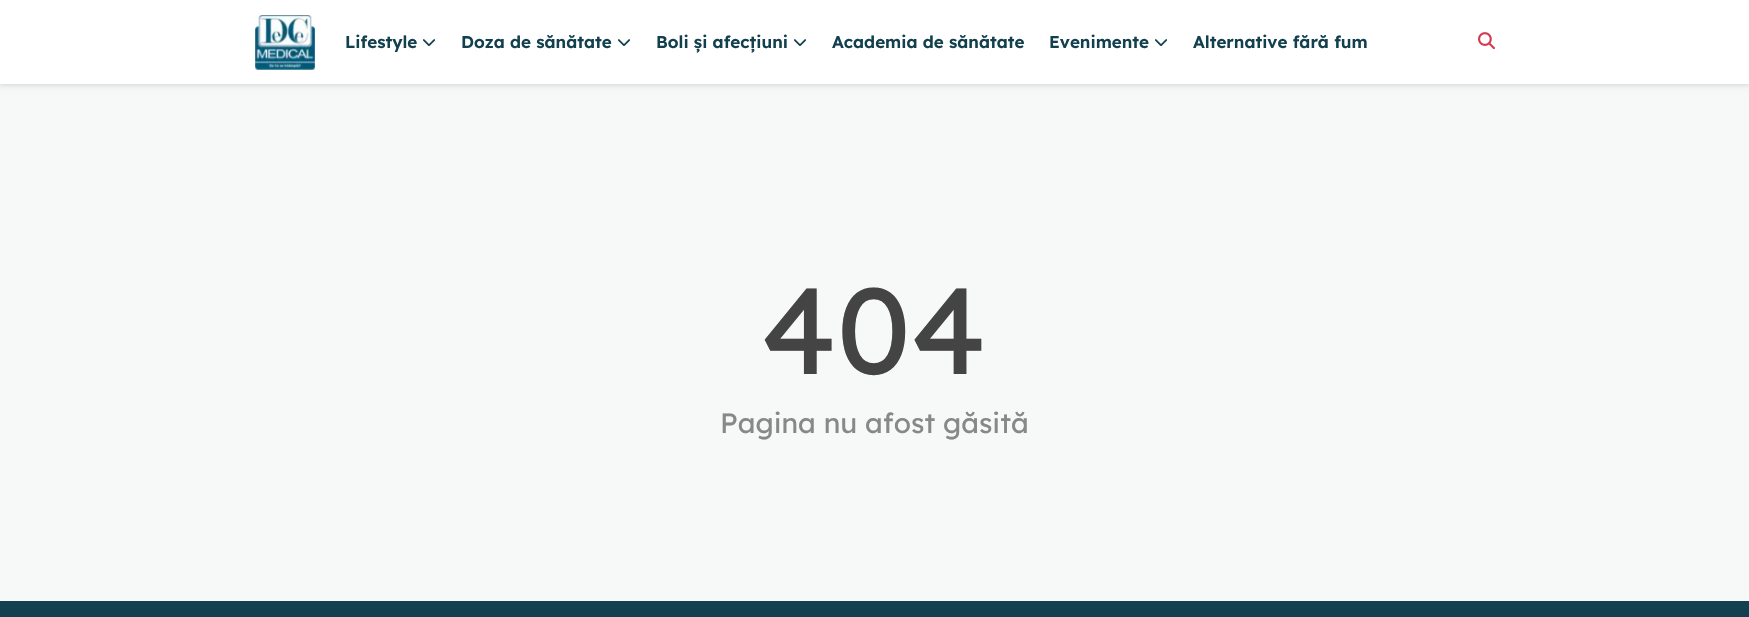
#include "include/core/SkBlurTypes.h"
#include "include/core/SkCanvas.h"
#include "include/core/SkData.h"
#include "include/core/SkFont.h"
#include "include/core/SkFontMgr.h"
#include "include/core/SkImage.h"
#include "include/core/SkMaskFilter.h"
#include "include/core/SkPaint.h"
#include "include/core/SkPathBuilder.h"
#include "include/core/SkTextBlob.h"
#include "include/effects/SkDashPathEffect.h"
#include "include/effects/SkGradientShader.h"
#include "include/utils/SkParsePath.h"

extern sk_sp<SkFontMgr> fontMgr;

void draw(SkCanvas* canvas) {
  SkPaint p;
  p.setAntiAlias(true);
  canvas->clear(SkColorSetRGB(247, 249, 249));
  p.setColor(SkColorSetRGB(209, 209, 209));
  p.setMaskFilter(SkMaskFilter::MakeBlur(kNormal_SkBlurStyle, 3));
  canvas->drawRect(SkRect::MakeLTRB(-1, -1, 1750, 85), p);
  p.setMaskFilter(nullptr);
  p.setColor(SK_ColorWHITE);
  canvas->drawRect(SkRect::MakeLTRB(0, 0, 1749, 84), p);
  canvas->drawImageRect(SkImages::DeferredFromEncodedData(SkData::MakeFromFileName("images/1.png")), SkRect::MakeLTRB(255, 15, 315, 70), SkSamplingOptions());
  canvas->drawImageRect(SkImages::DeferredFromEncodedData(SkData::MakeFromFileName("images/2.png")), SkRect::MakeLTRB(423, 39, 435, 46), SkSamplingOptions());
  canvas->drawImageRect(SkImages::DeferredFromEncodedData(SkData::MakeFromFileName("images/2.png")), SkRect::MakeLTRB(618, 39, 630, 46), SkSamplingOptions());
  canvas->drawImageRect(SkImages::DeferredFromEncodedData(SkData::MakeFromFileName("images/2.png")), SkRect::MakeLTRB(794, 39, 806, 46), SkSamplingOptions());
  canvas->drawImageRect(SkImages::DeferredFromEncodedData(SkData::MakeFromFileName("images/2.png")), SkRect::MakeLTRB(1155, 39, 1167, 46), SkSamplingOptions());
  canvas->drawImageRect(SkImages::DeferredFromEncodedData(SkData::MakeFromFileName("images/3.png")), SkRect::MakeLTRB(1478, 32, 1495, 50), SkSamplingOptions());
  p.setColor(SkColorSetRGB(19, 64, 79));
  canvas->drawRect(SkRect::MakeLTRB(0, 601, 1749, 617), p);
  SkFont font1(fontMgr->matchFamilyStyle("Lexend", SkFontStyle(600, SkFontStyle::kNormal_Width, SkFontStyle::kUpright_Slant)), 17);
  font1.setSubpixel(true);
  canvas->drawString("Lifestyle", 345, 48, font1, p);
  canvas->drawString("Doza de sănătate", 461, 48, font1, p);
  canvas->drawString("Boli și afecțiuni", 656, 48, font1, p);
  canvas->drawString("Academia de sănătate", 832, 48, font1, p);
  canvas->drawString("Evenimente", 1049, 48, font1, p);
  canvas->drawString("Alternative fără fum", 1193, 48, font1, p);
  SkFont font2(fontMgr->matchFamilyStyle("Lexend", SkFontStyle::Normal()), 122);
  font2.setSubpixel(true);
  p.setColor(SkColorSetRGB(68, 68, 68));
  canvas->drawString("404", 761, 374, font2, p);
  SkFont font3(fontMgr->matchFamilyStyle("Lexend", SkFontStyle::Normal()), 28);
  font3.setSubpixel(true);
  p.setColor(SkColorSetRGB(136, 136, 136));
  canvas->drawString("Pagina nu afost găsită", 720, 433, font3, p);
}
